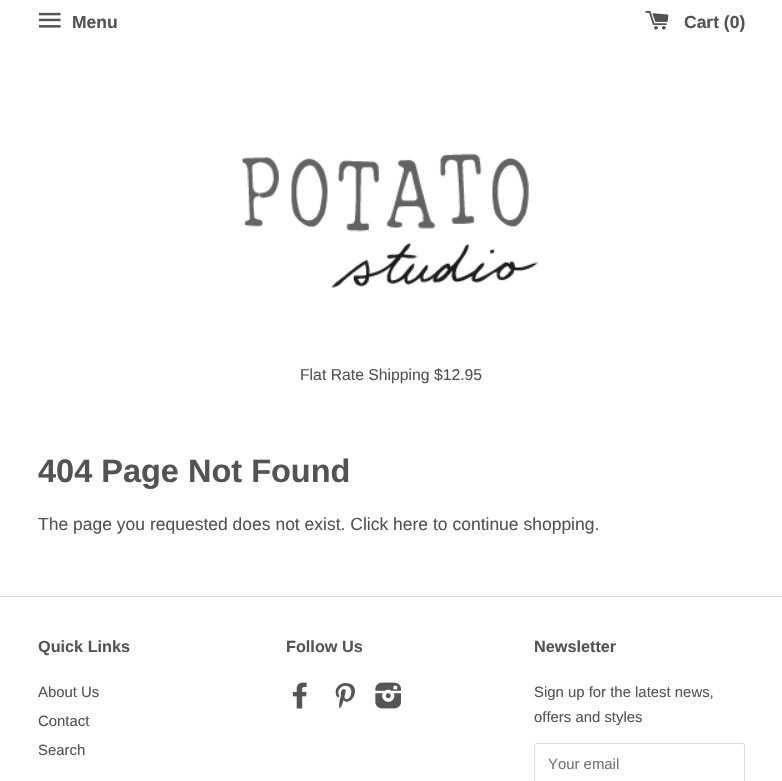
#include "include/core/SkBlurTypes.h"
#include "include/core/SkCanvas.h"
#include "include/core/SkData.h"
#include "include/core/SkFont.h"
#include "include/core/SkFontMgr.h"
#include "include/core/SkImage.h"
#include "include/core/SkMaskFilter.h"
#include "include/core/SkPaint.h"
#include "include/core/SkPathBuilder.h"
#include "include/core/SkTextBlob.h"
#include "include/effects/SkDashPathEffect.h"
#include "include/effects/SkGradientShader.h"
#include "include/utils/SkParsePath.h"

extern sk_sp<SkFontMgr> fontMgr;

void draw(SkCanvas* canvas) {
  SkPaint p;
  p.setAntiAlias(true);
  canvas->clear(SK_ColorWHITE);
  canvas->drawImageRect(SkImages::DeferredFromEncodedData(SkData::MakeFromFileName("images/1.png")), SkRect::MakeLTRB(38, 12, 61, 28), SkSamplingOptions());
  canvas->drawImageRect(SkImages::DeferredFromEncodedData(SkData::MakeFromFileName("images/2.png")), SkRect::MakeLTRB(645, 11, 669, 30), SkSamplingOptions());
  canvas->drawImageRect(SkImages::DeferredFromEncodedData(SkData::MakeFromFileName("images/3.png")), SkRect::MakeLTRB(242, 153, 538, 288), SkSamplingOptions());
  p.setColor(SkColorSetRGB(221, 221, 221));
  canvas->drawRect(SkRect::MakeLTRB(0, 596, 782, 597), p);
  canvas->drawImageRect(SkImages::DeferredFromEncodedData(SkData::MakeFromFileName("images/4.png")), SkRect::MakeLTRB(292, 682, 307, 709), SkSamplingOptions());
  canvas->drawImageRect(SkImages::DeferredFromEncodedData(SkData::MakeFromFileName("images/5.png")), SkRect::MakeLTRB(335, 683, 355, 709), SkSamplingOptions());
  canvas->drawImageRect(SkImages::DeferredFromEncodedData(SkData::MakeFromFileName("images/6.png")), SkRect::MakeLTRB(375, 682, 401, 709), SkSamplingOptions());
  p.setStyle(SkPaint::kStroke_Style);
  p.setStrokeWidth(1);
  canvas->drawRoundRect(SkRect::MakeLTRB(534.5f, 743.5f, 744.5f, 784.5f), 2, 2, p);
  SkFont font1(fontMgr->matchFamilyStyle("Liberation Sans", SkFontStyle::Bold()), 17.5f);
  font1.setSubpixel(true);
  p.setStyle(SkPaint::kFill_Style);
  p.setColor(SkColorSetRGB(84, 82, 82));
  canvas->drawString("Menu", 72, 28, font1, p);
  canvas->drawString("Cart (0)", 684, 28, font1, p);
  SkFont font2(fontMgr->matchFamilyStyle("Liberation Sans", SkFontStyle::Normal()), 15.75f);
  font2.setSubpixel(true);
  canvas->drawString("Flat Rate Shipping $12.95", 300, 380, font2, p);
  SkFont font3(fontMgr->matchFamilyStyle("Liberation Sans", SkFontStyle::Bold()), 32.5f);
  font3.setSubpixel(true);
  canvas->drawString("404 Page Not Found", 38, 482, font3, p);
  SkFont font4(fontMgr->matchFamilyStyle("Liberation Sans", SkFontStyle::Normal()), 17.5f);
  font4.setSubpixel(true);
  canvas->drawString("The page you requested does not exist. Click here to continue shopping.", 38, 530, font4, p);
  SkFont font5(fontMgr->matchFamilyStyle("Liberation Sans", SkFontStyle::Bold()), 16.25f);
  font5.setSubpixel(true);
  canvas->drawString("Quick Links", 38, 652, font5, p);
  SkFont font6(fontMgr->matchFamilyStyle("Liberation Sans", SkFontStyle::Normal()), 14.9f);
  font6.setSubpixel(true);
  canvas->drawString("About Us", 38, 697, font6, p);
  canvas->drawString("Contact", 38, 726, font6, p);
  canvas->drawString("Search", 38, 755, font6, p);
  canvas->drawString("Follow Us", 286, 652, font5, p);
  canvas->drawString("Newsletter", 534, 652, font5, p);
  canvas->drawString("Sign up for the latest news,", 534, 697, font6, p);
  canvas->drawString("offers and styles", 534, 722, font6, p);
  p.setColor(SkColorSetRGB(117, 117, 117));
  canvas->drawString("Your email", 548, 769, font6, p);
}
